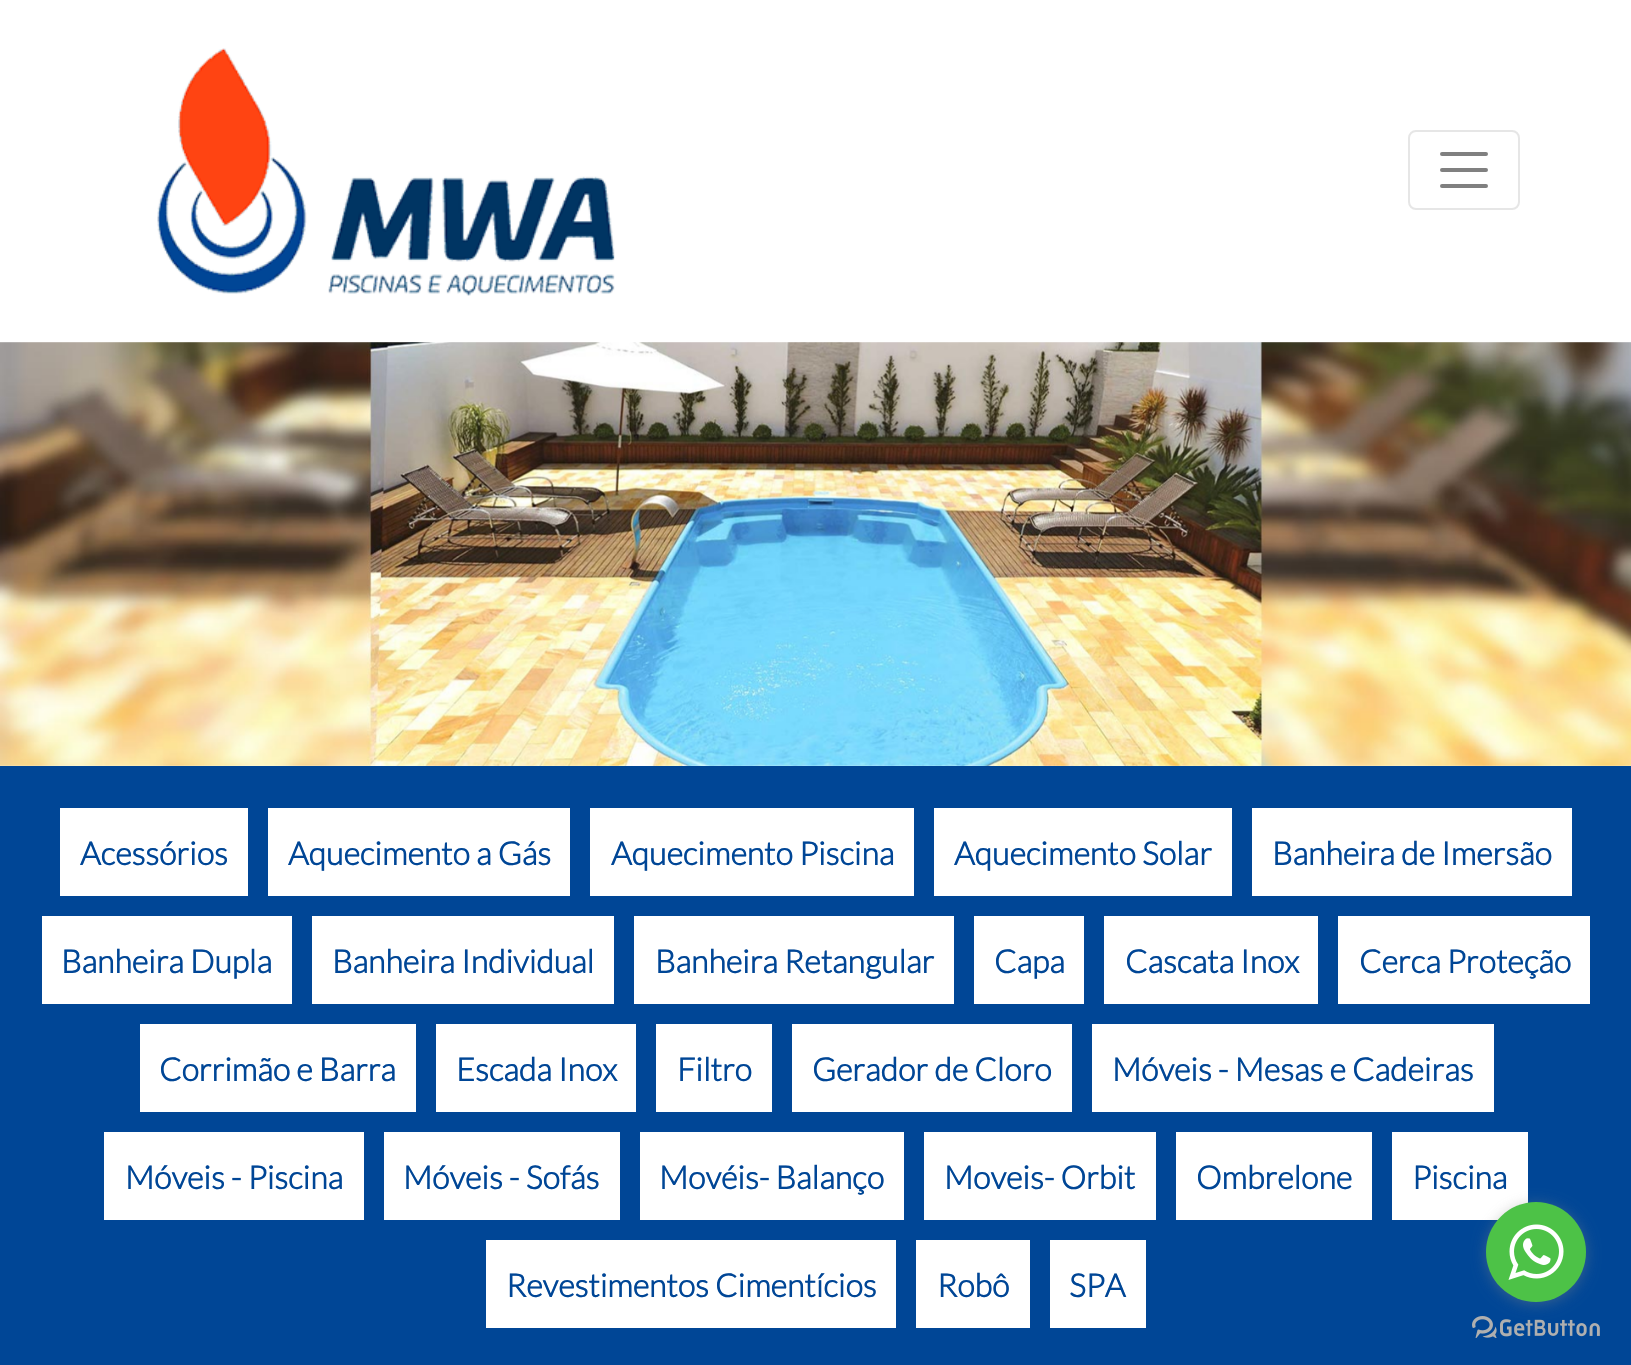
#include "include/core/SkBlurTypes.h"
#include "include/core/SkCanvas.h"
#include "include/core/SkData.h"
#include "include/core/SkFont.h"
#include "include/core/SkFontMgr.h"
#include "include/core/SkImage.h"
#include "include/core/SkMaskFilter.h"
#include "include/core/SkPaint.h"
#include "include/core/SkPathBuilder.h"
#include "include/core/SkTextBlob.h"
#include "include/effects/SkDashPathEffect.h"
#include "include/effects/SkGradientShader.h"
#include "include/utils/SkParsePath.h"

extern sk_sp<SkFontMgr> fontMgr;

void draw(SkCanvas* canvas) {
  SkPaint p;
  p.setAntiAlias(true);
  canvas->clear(SK_ColorWHITE);
  canvas->drawImageRect(SkImages::DeferredFromEncodedData(SkData::MakeFromFileName("images/1.png")), SkRect::MakeLTRB(157, 48, 615, 296), SkSamplingOptions());
  p.setStyle(SkPaint::kStroke_Style);
  p.setStrokeWidth(2);
  p.setColor(SkColorSetRGB(230, 230, 230));
  canvas->drawRoundRect(SkRect::MakeLTRB(1409, 131, 1519, 209), 7, 7, p);
  p.setStrokeWidth(4);
  p.setStrokeCap(SkPaint::kRound_Cap);
  p.setColor(SkColorSetRGB(128, 128, 128));
  canvas->drawPath(SkPathBuilder().moveTo(1442, 154).lineTo(1486, 154).moveTo(1442, 170).lineTo(1486, 170).moveTo(1442, 186).lineTo(1486, 186).detach(), p);
  canvas->drawImageRect(SkImages::DeferredFromEncodedData(SkData::MakeFromFileName("images/2.png")), SkRect::MakeLTRB(0, 342, 1631, 766), SkSamplingOptions());
  p.setStyle(SkPaint::kFill_Style);
  p.setColor(SkColorSetRGB(0, 70, 150));
  canvas->drawRect(SkRect::MakeLTRB(0, 766, 1631, 1365), p);
  p.setColor(SK_ColorWHITE);
  canvas->drawRect(SkRect::MakeLTRB(60, 808, 248, 896), p);
  canvas->drawRect(SkRect::MakeLTRB(268, 808, 570, 896), p);
  canvas->drawRect(SkRect::MakeLTRB(590, 808, 914, 896), p);
  canvas->drawRect(SkRect::MakeLTRB(934, 808, 1232, 896), p);
  canvas->drawRect(SkRect::MakeLTRB(1252, 808, 1572, 896), p);
  canvas->drawRect(SkRect::MakeLTRB(42, 916, 292, 1004), p);
  canvas->drawRect(SkRect::MakeLTRB(312, 916, 614, 1004), p);
  canvas->drawRect(SkRect::MakeLTRB(634, 916, 954, 1004), p);
  canvas->drawRect(SkRect::MakeLTRB(974, 916, 1084, 1004), p);
  canvas->drawRect(SkRect::MakeLTRB(1104, 916, 1318, 1004), p);
  canvas->drawRect(SkRect::MakeLTRB(1338, 916, 1590, 1004), p);
  canvas->drawRect(SkRect::MakeLTRB(140, 1024, 416, 1112), p);
  canvas->drawRect(SkRect::MakeLTRB(436, 1024, 636, 1112), p);
  canvas->drawRect(SkRect::MakeLTRB(656, 1024, 772, 1112), p);
  canvas->drawRect(SkRect::MakeLTRB(792, 1024, 1072, 1112), p);
  canvas->drawRect(SkRect::MakeLTRB(1092, 1024, 1494, 1112), p);
  canvas->drawRect(SkRect::MakeLTRB(104, 1132, 364, 1220), p);
  canvas->drawRect(SkRect::MakeLTRB(384, 1132, 620, 1220), p);
  canvas->drawRect(SkRect::MakeLTRB(640, 1132, 904, 1220), p);
  canvas->drawRect(SkRect::MakeLTRB(924, 1132, 1156, 1220), p);
  canvas->drawRect(SkRect::MakeLTRB(1176, 1132, 1372, 1220), p);
  canvas->drawRect(SkRect::MakeLTRB(1392, 1132, 1528, 1220), p);
  canvas->drawRect(SkRect::MakeLTRB(486, 1240, 896, 1328), p);
  canvas->drawRect(SkRect::MakeLTRB(916, 1240, 1030, 1328), p);
  canvas->drawRect(SkRect::MakeLTRB(1050, 1240, 1146, 1328), p);
  canvas->drawImageRect(SkImages::DeferredFromEncodedData(SkData::MakeFromFileName("images/4.png")), SkRect::MakeLTRB(1472, 1316, 1600, 1338), SkSamplingOptions());
  p.setColor(SkColorSetARGB(102, 136, 136, 136));
  p.setMaskFilter(SkMaskFilter::MakeBlur(kNormal_SkBlurStyle, 7));
  canvas->drawRoundRect(SkRect::MakeLTRB(1486, 1204, 1586, 1304), 50, 50, p);
  p.setMaskFilter(nullptr);
  p.setColor(SkColorSetRGB(77, 194, 71));
  canvas->drawCircle(1536, 1252, 50, p);
  canvas->drawImageRect(SkImages::DeferredFromEncodedData(SkData::MakeFromFileName("images/3.png")), SkRect::MakeLTRB(1508, 1224, 1564, 1280), SkSamplingOptions());
  SkFont font1(fontMgr->matchFamilyStyle("Lato", SkFontStyle::Bold()), 32);
  font1.setSubpixel(true);
  p.setColor(SkColorSetRGB(0, 70, 150));
  canvas->drawString("Acessórios", 80, 865, font1, p);
  canvas->drawString("Aquecimento a Gás", 288, 865, font1, p);
  canvas->drawString("Aquecimento Piscina", 611, 865, font1, p);
  canvas->drawString("Aquecimento Solar", 954, 865, font1, p);
  canvas->drawString("Banheira de Imersão", 1272, 865, font1, p);
  canvas->drawString("Banheira Dupla", 61, 973, font1, p);
  canvas->drawString("Banheira Individual", 332, 973, font1, p);
  canvas->drawString("Banheira Retangular", 655, 973, font1, p);
  canvas->drawString("Capa", 994, 973, font1, p);
  canvas->drawString("Cascata Inox", 1125, 973, font1, p);
  canvas->drawString("Cerca Proteção", 1359, 973, font1, p);
  canvas->drawString("Corrimão e Barra", 159, 1081, font1, p);
  canvas->drawString("Escada Inox", 456, 1081, font1, p);
  canvas->drawString("Filtro", 677, 1081, font1, p);
  canvas->drawString("Gerador de Cloro", 812, 1081, font1, p);
  canvas->drawString("Móveis - Mesas e Cadeiras", 1112, 1081, font1, p);
  canvas->drawString("Móveis - Piscina", 125, 1189, font1, p);
  canvas->drawString("Móveis - Sofás", 403, 1189, font1, p);
  canvas->drawString("Movéis- Balanço", 659, 1189, font1, p);
  canvas->drawString("Moveis- Orbit", 944, 1189, font1, p);
  canvas->drawString("Ombrelone", 1196, 1189, font1, p);
  canvas->drawString("Piscina", 1412, 1189, font1, p);
  canvas->drawString("Revestimentos Cimentícios", 506, 1297, font1, p);
  canvas->drawString("Robô", 937, 1297, font1, p);
  canvas->drawString("SPA", 1069, 1297, font1, p);
}
